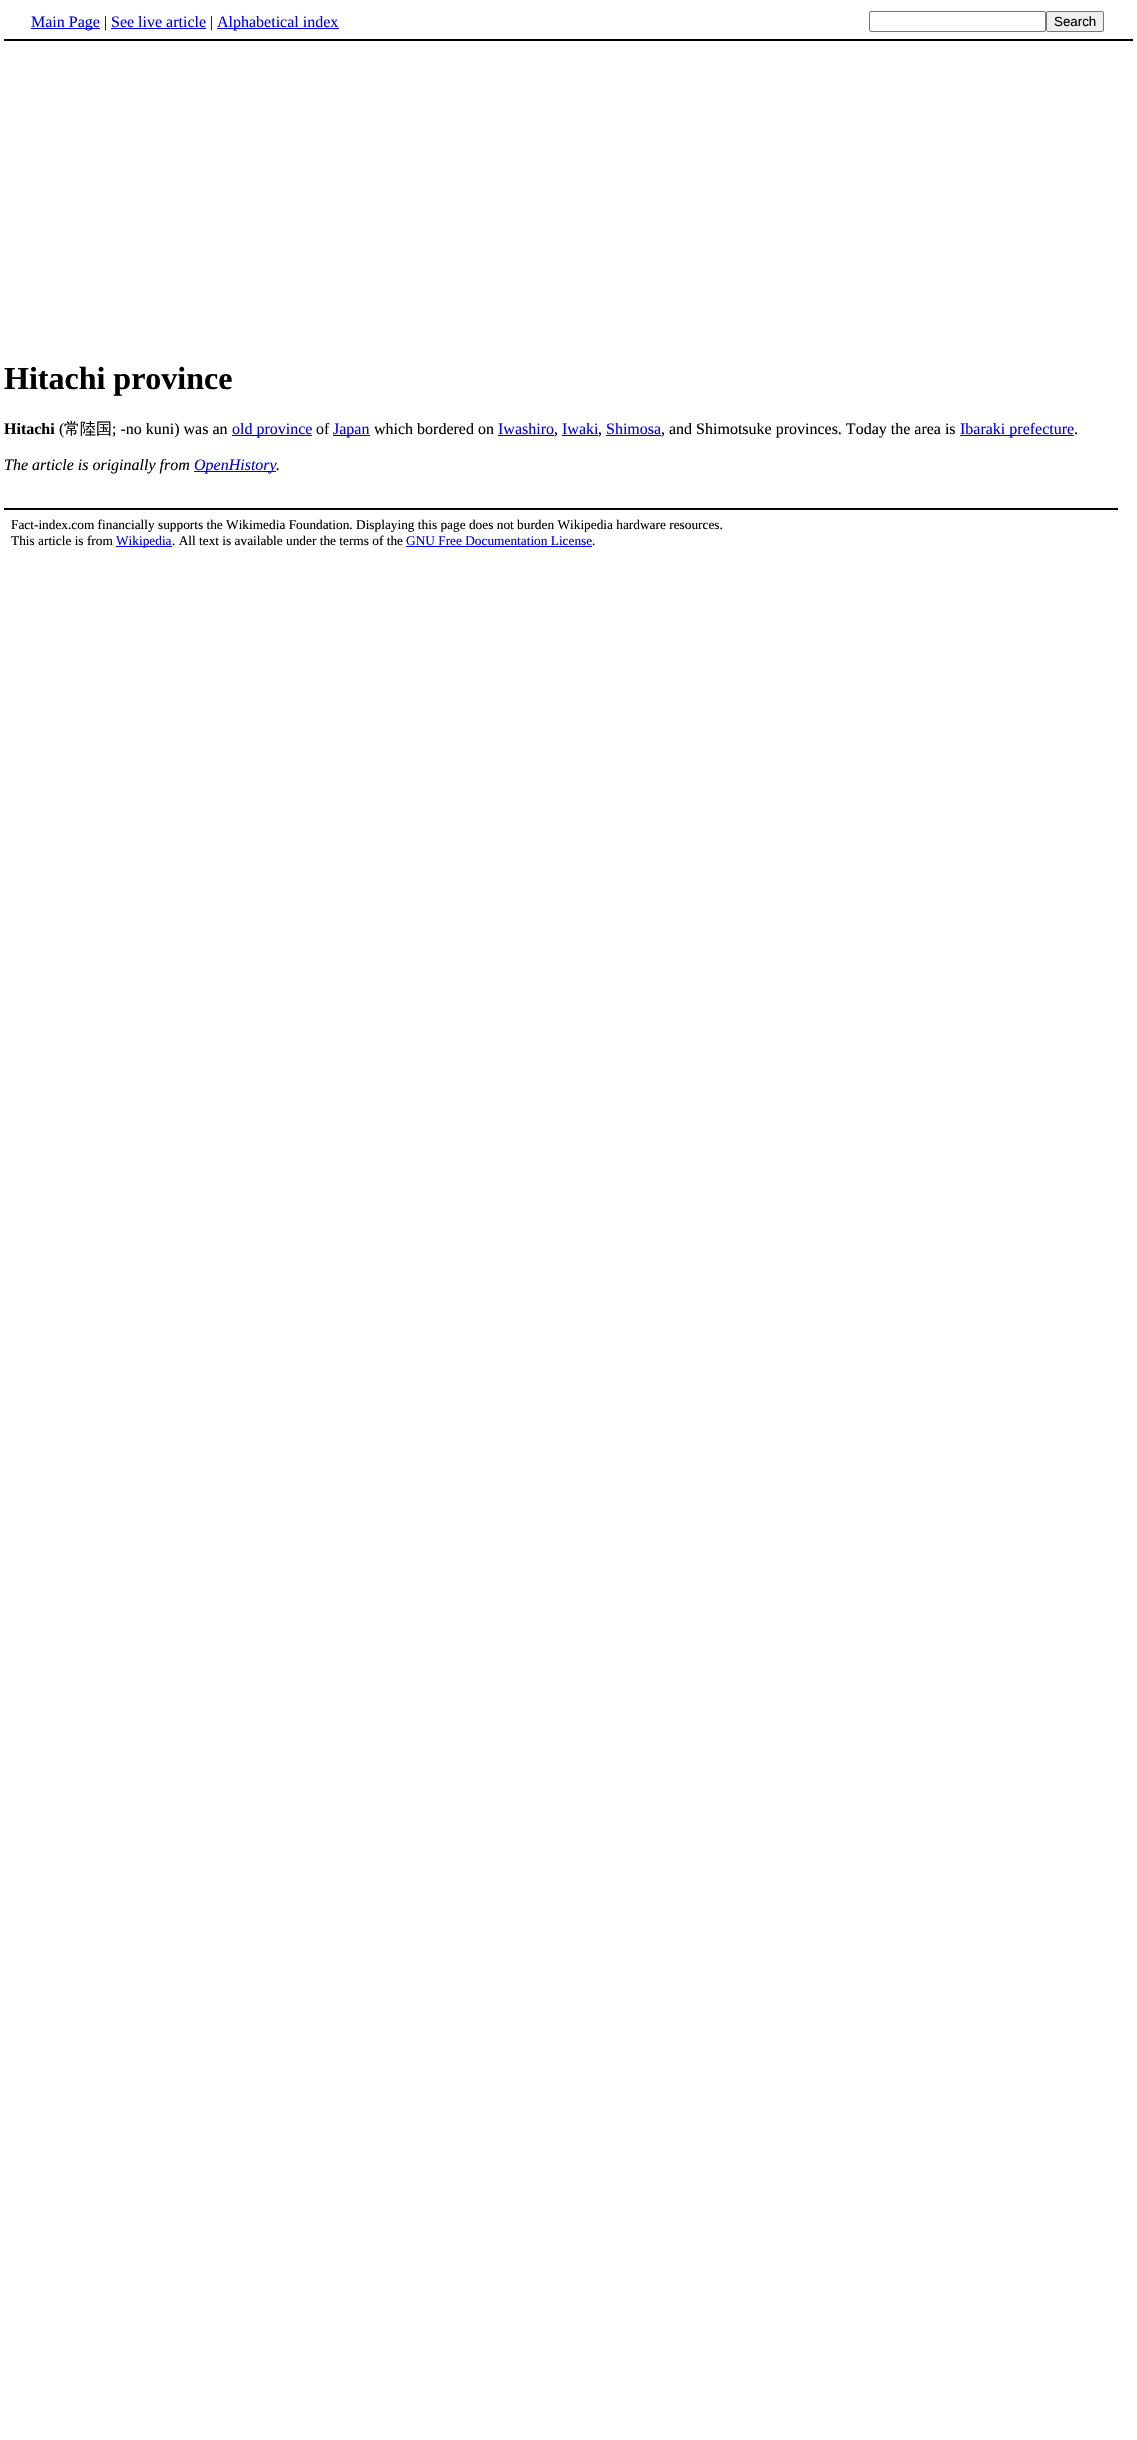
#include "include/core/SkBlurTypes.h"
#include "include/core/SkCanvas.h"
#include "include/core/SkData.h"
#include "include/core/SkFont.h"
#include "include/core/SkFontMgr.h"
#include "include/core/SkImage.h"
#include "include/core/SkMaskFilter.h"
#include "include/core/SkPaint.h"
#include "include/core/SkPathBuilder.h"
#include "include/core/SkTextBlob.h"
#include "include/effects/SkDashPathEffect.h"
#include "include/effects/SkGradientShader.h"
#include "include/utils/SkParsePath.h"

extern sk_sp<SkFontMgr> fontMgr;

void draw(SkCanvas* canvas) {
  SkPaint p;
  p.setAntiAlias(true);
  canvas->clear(SK_ColorWHITE);
  p.setColor(SK_ColorBLACK);
  canvas->drawRect(SkRect::MakeLTRB(4, 39, 1133, 41), p);
  p.setColor(SkColorSetRGB(0, 0, 238));
  canvas->drawRect(SkRect::MakeLTRB(31, 28, 100, 29), p);
  canvas->drawRect(SkRect::MakeLTRB(111, 28, 206, 29), p);
  canvas->drawRect(SkRect::MakeLTRB(217, 28, 339, 29), p);
  p.setStyle(SkPaint::kStroke_Style);
  p.setStrokeWidth(1);
  p.setColor(SkColorSetRGB(118, 118, 118));
  canvas->drawRoundRect(SkRect::MakeLTRB(869.5f, 11.5f, 1045.5f, 31.5f), 1.5f, 1.5f, p);
  p.setStyle(SkPaint::kFill_Style);
  p.setColor(SkColorSetRGB(239, 239, 239));
  canvas->drawRoundRect(SkRect::MakeLTRB(1046.5f, 11.5f, 1103.5f, 31.5f), 1.5f, 1.5f, p);
  p.setStyle(SkPaint::kStroke_Style);
  p.setColor(SkColorSetRGB(118, 118, 118));
  canvas->drawRoundRect(SkRect::MakeLTRB(1046.5f, 11.5f, 1103.5f, 31.5f), 1.5f, 1.5f, p);
  p.setStyle(SkPaint::kFill_Style);
  p.setColor(SkColorSetRGB(0, 0, 238));
  canvas->drawRect(SkRect::MakeLTRB(232, 435, 312, 436), p);
  canvas->drawRect(SkRect::MakeLTRB(333, 435, 370, 436), p);
  canvas->drawRect(SkRect::MakeLTRB(498, 435, 554, 436), p);
  canvas->drawRect(SkRect::MakeLTRB(562, 435, 598, 436), p);
  canvas->drawRect(SkRect::MakeLTRB(606, 435, 661, 436), p);
  canvas->drawRect(SkRect::MakeLTRB(960, 435, 1074, 436), p);
  canvas->drawRect(SkRect::MakeLTRB(194, 471, 276, 472), p);
  p.setColor(SK_ColorBLACK);
  canvas->drawRect(SkRect::MakeLTRB(4, 508, 1118, 510), p);
  p.setColor(SkColorSetRGB(0, 0, 238));
  canvas->drawRect(SkRect::MakeLTRB(116, 546, 172, 547), p);
  canvas->drawRect(SkRect::MakeLTRB(406, 546, 592, 547), p);
  SkFont font1(fontMgr->matchFamilyStyle("Liberation Serif", SkFontStyle::Normal()), 16);
  font1.setSubpixel(true);
  canvas->drawString("Main Page", 31, 27, font1, p);
  p.setColor(SK_ColorBLACK);
  canvas->drawString("|", 104, 27, font1, p);
  p.setColor(SkColorSetRGB(0, 0, 238));
  canvas->drawString("See live article", 111, 27, font1, p);
  p.setColor(SK_ColorBLACK);
  canvas->drawString("|", 210, 27, font1, p);
  p.setColor(SkColorSetRGB(0, 0, 238));
  canvas->drawString("Alphabetical index", 217, 27, font1, p);
  SkFont font2(fontMgr->matchFamilyStyle("Liberation Sans", SkFontStyle::Normal()), 13.33f);
  font2.setSubpixel(true);
  p.setColor(SK_ColorBLACK);
  canvas->drawString("Search", 1054, 26, font2, p);
  SkFont font3(fontMgr->matchFamilyStyle("Liberation Serif", SkFontStyle::Bold()), 32);
  font3.setSubpixel(true);
  canvas->drawString("Hitachi province", 4, 389, font3, p);
  SkFont font4(fontMgr->matchFamilyStyle("Liberation Serif", SkFontStyle::Bold()), 16);
  font4.setSubpixel(true);
  canvas->drawString("Hitachi", 4, 434, font4, p);
  canvas->drawString("(", 59, 434, font1, p);
  SkFont font5(fontMgr->matchFamilyStyle("WenQuanYi Zen Hei", SkFontStyle(500, SkFontStyle::kNormal_Width, SkFontStyle::kUpright_Slant)), 16);
  font5.setSubpixel(true);
  canvas->drawString("常陸国", 64, 434, font5, p);
  canvas->drawString("; -no kuni) was an", 112, 434, font1, p);
  p.setColor(SkColorSetRGB(0, 0, 238));
  canvas->drawString("old province", 232, 434, font1, p);
  p.setColor(SK_ColorBLACK);
  canvas->drawString("of", 316, 434, font1, p);
  p.setColor(SkColorSetRGB(0, 0, 238));
  canvas->drawString("Japan", 333, 434, font1, p);
  p.setColor(SK_ColorBLACK);
  canvas->drawString("which bordered on", 374, 434, font1, p);
  p.setColor(SkColorSetRGB(0, 0, 238));
  canvas->drawString("Iwashiro", 498, 434, font1, p);
  p.setColor(SK_ColorBLACK);
  canvas->drawString(",", 554, 434, font1, p);
  p.setColor(SkColorSetRGB(0, 0, 238));
  canvas->drawString("Iwaki", 562, 434, font1, p);
  p.setColor(SK_ColorBLACK);
  canvas->drawString(",", 598, 434, font1, p);
  p.setColor(SkColorSetRGB(0, 0, 238));
  canvas->drawString("Shimosa", 606, 434, font1, p);
  p.setColor(SK_ColorBLACK);
  canvas->drawString(", and Shimotsuke provinces. Today the area is", 661, 434, font1, p);
  p.setColor(SkColorSetRGB(0, 0, 238));
  canvas->drawString("Ibaraki prefecture", 960, 434, font1, p);
  p.setColor(SK_ColorBLACK);
  canvas->drawString(".", 1074, 434, font1, p);
  SkFont font6(fontMgr->matchFamilyStyle("Liberation Serif", SkFontStyle::Italic()), 16);
  font6.setSubpixel(true);
  canvas->drawString("The article is originally from", 4, 470, font6, p);
  p.setColor(SkColorSetRGB(0, 0, 238));
  canvas->drawString("OpenHistory", 194, 470, font6, p);
  p.setColor(SK_ColorBLACK);
  canvas->drawString(".", 276, 470, font6, p);
  SkFont font7(fontMgr->matchFamilyStyle("Liberation Serif", SkFontStyle::Normal()), 13.33f);
  font7.setSubpixel(true);
  canvas->drawString("Fact-index.com financially supports the Wikimedia Foundation. Displaying this page does not burden Wikipedia hardware resources.", 11, 529, font7, p);
  canvas->drawString("This article is from", 11, 545, font7, p);
  p.setColor(SkColorSetRGB(0, 0, 238));
  canvas->drawString("Wikipedia", 116, 545, font7, p);
  p.setColor(SK_ColorBLACK);
  canvas->drawString(". All text is available under the terms of the", 172, 545, font7, p);
  p.setColor(SkColorSetRGB(0, 0, 238));
  canvas->drawString("GNU Free Documentation License", 406, 545, font7, p);
  p.setColor(SK_ColorBLACK);
  canvas->drawString(".", 592, 545, font7, p);
}
